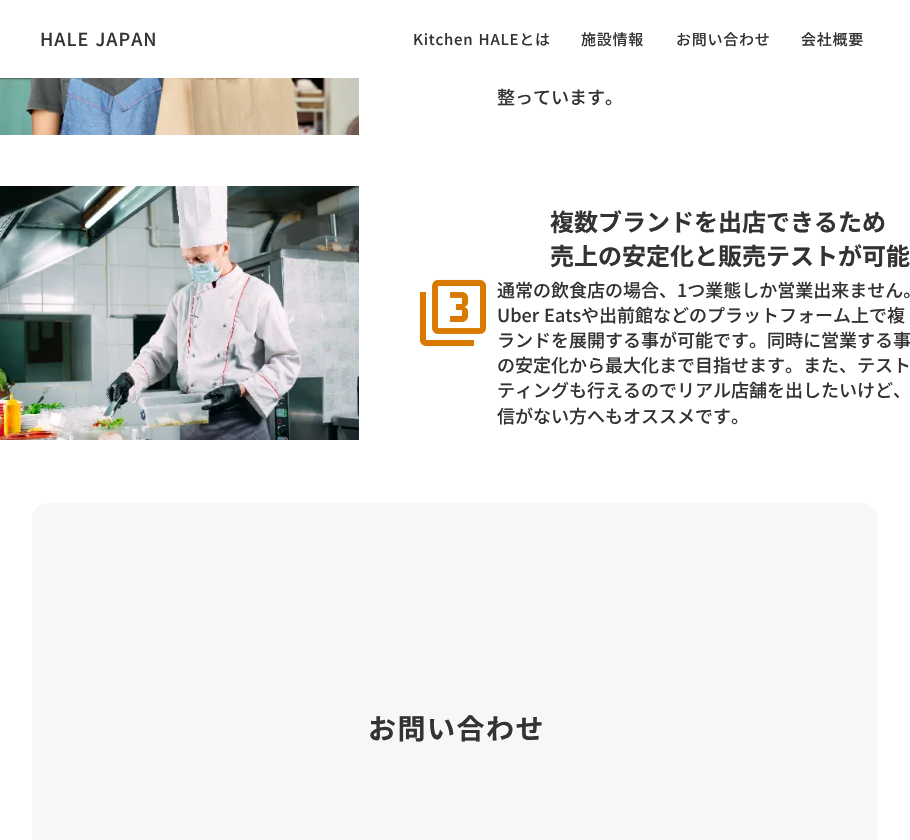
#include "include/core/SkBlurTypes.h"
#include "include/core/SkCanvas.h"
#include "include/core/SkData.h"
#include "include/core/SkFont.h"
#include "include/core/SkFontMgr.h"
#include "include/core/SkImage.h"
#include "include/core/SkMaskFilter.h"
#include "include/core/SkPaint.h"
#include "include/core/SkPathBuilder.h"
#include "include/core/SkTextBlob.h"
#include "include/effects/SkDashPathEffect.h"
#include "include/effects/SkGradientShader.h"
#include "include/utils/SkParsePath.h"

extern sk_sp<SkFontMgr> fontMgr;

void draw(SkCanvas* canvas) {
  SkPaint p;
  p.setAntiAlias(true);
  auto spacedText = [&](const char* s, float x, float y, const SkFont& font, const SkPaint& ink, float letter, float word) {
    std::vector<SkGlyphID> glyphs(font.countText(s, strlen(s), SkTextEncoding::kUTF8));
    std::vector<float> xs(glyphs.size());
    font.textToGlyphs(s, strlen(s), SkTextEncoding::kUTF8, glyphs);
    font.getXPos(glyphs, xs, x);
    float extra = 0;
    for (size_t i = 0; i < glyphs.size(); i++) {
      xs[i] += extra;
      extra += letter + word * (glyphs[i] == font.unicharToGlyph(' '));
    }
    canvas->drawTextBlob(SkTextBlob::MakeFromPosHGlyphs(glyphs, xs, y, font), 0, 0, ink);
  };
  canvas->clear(SK_ColorWHITE);
  canvas->drawImageRect(SkImages::DeferredFromEncodedData(SkData::MakeFromFileName("images/1.png")), SkRect::MakeLTRB(0, 78, 359, 135), SkSamplingOptions());
  canvas->drawImageRect(SkImages::DeferredFromEncodedData(SkData::MakeFromFileName("images/2.png")), SkRect::MakeLTRB(0, 186, 359, 440), SkSamplingOptions());
  canvas->drawImageRect(SkImages::DeferredFromEncodedData(SkData::MakeFromFileName("images/3.png")), SkRect::MakeLTRB(419, 279, 487, 347), SkSamplingOptions());
  p.setColor(SkColorSetRGB(247, 247, 247));
  canvas->drawRoundRect(SkRect::MakeLTRB(32, 503, 878, 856), 16, 16, p);
  SkFont font1(fontMgr->matchFamilyStyle("Noto Sans JP", SkFontStyle(500, SkFontStyle::kNormal_Width, SkFontStyle::kUpright_Slant)), 18);
  font1.setSubpixel(true);
  p.setColor(SkColorSetRGB(51, 51, 51));
  spacedText("HALE JAPAN", 40, 46, font1, p, 1, 1);
  SkFont font2(fontMgr->matchFamilyStyle("Noto Sans JP", SkFontStyle(500, SkFontStyle::kNormal_Width, SkFontStyle::kUpright_Slant)), 15);
  font2.setSubpixel(true);
  spacedText("Kitchen HALEとは", 413, 45, font2, p, 0.75f, 1);
  spacedText("施設情報", 581, 45, font2, p, 0.75f, 0);
  spacedText("お問い合わせ", 676, 45, font2, p, 0.75f, 0);
  spacedText("会社概要", 801, 45, font2, p, 0.75f, 0);
  canvas->drawString("整っています。", 497, 104, font1, p);
  SkFont font3(fontMgr->matchFamilyStyle("Noto Sans JP", SkFontStyle::Bold()), 24);
  font3.setSubpixel(true);
  canvas->drawString("複数ブランドを出店できるため", 550, 231, font3, p);
  canvas->drawString("売上の安定化と販売テストが可能", 550, 265, font3, p);
  canvas->drawString("通常の飲食店の場合、1つ業態しか営業出来ません。", 497, 297, font1, p);
  spacedText("Uber Eatsや出前館などのプラットフォーム上で複", 497, 322, font1, p, 0, 1);
  canvas->drawString("ランドを展開する事が可能です。同時に営業する事", 497, 347, font1, p);
  canvas->drawString("の安定化から最大化まで目指せます。また、テスト", 497, 372, font1, p);
  canvas->drawString("ティングも行えるのでリアル店舗を出したいけど、", 497, 397, font1, p);
  canvas->drawString("信がない方へもオススメです。", 497, 423, font1, p);
  SkFont font4(fontMgr->matchFamilyStyle("Noto Sans JP", SkFontStyle::Bold()), 28);
  font4.setSubpixel(true);
  spacedText("お問い合わせ", 368, 739, font4, p, 1.5f, 0);
}
